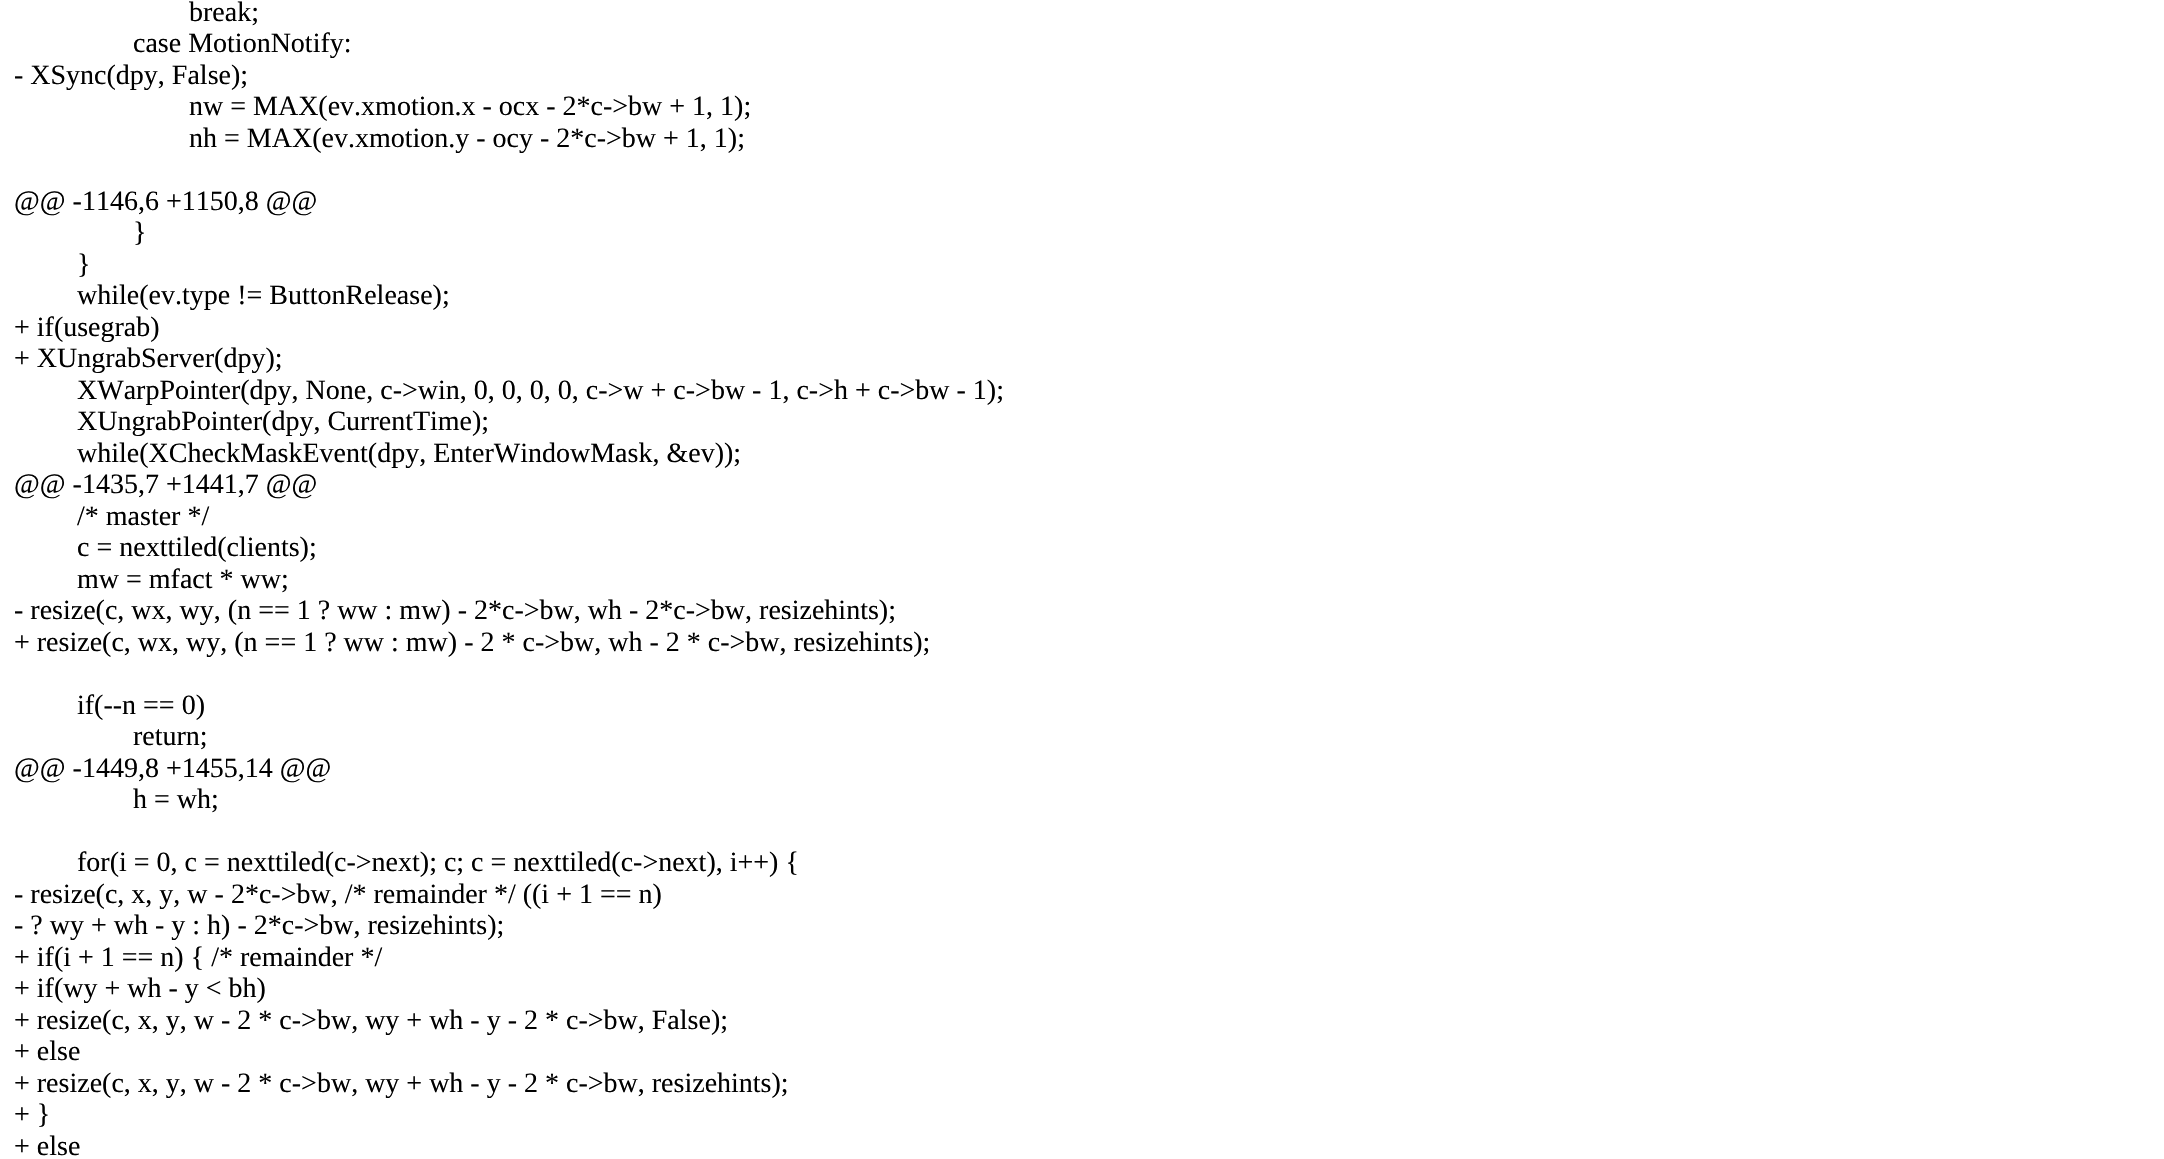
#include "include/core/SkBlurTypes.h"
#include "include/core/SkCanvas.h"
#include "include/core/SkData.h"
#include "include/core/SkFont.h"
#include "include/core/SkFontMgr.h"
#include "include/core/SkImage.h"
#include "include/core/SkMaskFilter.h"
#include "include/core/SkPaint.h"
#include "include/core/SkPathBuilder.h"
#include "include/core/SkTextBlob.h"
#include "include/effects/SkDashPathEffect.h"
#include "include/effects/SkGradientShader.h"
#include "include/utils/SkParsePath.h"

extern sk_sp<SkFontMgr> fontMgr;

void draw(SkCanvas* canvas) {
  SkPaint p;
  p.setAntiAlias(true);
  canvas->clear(SK_ColorWHITE);
  SkFont font1(fontMgr->matchFamilyStyle("Liberation Serif", SkFontStyle::Normal()), 28);
  font1.setSubpixel(true);
  p.setColor(SK_ColorBLACK);
  canvas->drawString("break;", 189, 21, font1, p);
  canvas->drawString("case MotionNotify:", 133, 52, font1, p);
  canvas->drawString("- XSync(dpy, False);", 14, 84, font1, p);
  canvas->drawString("nw = MAX(ev.xmotion.x - ocx - 2*c->bw + 1, 1);", 189, 115, font1, p);
  canvas->drawString("nh = MAX(ev.xmotion.y - ocy - 2*c->bw + 1, 1);", 189, 147, font1, p);
  canvas->drawString("@@ -1146,6 +1150,8 @@", 14, 210, font1, p);
  canvas->drawString("}", 133, 241, font1, p);
  canvas->drawString("}", 77, 273, font1, p);
  canvas->drawString("while(ev.type != ButtonRelease);", 77, 304, font1, p);
  canvas->drawString("+ if(usegrab)", 14, 336, font1, p);
  canvas->drawString("+ XUngrabServer(dpy);", 14, 367, font1, p);
  canvas->drawString("XWarpPointer(dpy, None, c->win, 0, 0, 0, 0, c->w + c->bw - 1, c->h + c->bw - 1);", 77, 399, font1, p);
  canvas->drawString("XUngrabPointer(dpy, CurrentTime);", 77, 430, font1, p);
  canvas->drawString("while(XCheckMaskEvent(dpy, EnterWindowMask, &ev));", 77, 462, font1, p);
  canvas->drawString("@@ -1435,7 +1441,7 @@", 14, 493, font1, p);
  canvas->drawString("/* master */", 77, 525, font1, p);
  canvas->drawString("c = nexttiled(clients);", 77, 556, font1, p);
  canvas->drawString("mw = mfact * ww;", 77, 588, font1, p);
  canvas->drawString("- resize(c, wx, wy, (n == 1 ? ww : mw) - 2*c->bw, wh - 2*c->bw, resizehints);", 14, 619, font1, p);
  canvas->drawString("+ resize(c, wx, wy, (n == 1 ? ww : mw) - 2 * c->bw, wh - 2 * c->bw, resizehints);", 14, 651, font1, p);
  canvas->drawString("if(--n == 0)", 77, 714, font1, p);
  canvas->drawString("return;", 133, 745, font1, p);
  canvas->drawString("@@ -1449,8 +1455,14 @@", 14, 777, font1, p);
  canvas->drawString("h = wh;", 133, 808, font1, p);
  canvas->drawString("for(i = 0, c = nexttiled(c->next); c; c = nexttiled(c->next), i++) {", 77, 871, font1, p);
  canvas->drawString("- resize(c, x, y, w - 2*c->bw, /* remainder */ ((i + 1 == n)", 14, 903, font1, p);
  canvas->drawString("- ? wy + wh - y : h) - 2*c->bw, resizehints);", 14, 934, font1, p);
  canvas->drawString("+ if(i + 1 == n) { /* remainder */", 14, 966, font1, p);
  canvas->drawString("+ if(wy + wh - y < bh)", 14, 997, font1, p);
  canvas->drawString("+ resize(c, x, y, w - 2 * c->bw, wy + wh - y - 2 * c->bw, False);", 14, 1029, font1, p);
  canvas->drawString("+ else", 14, 1060, font1, p);
  canvas->drawString("+ resize(c, x, y, w - 2 * c->bw, wy + wh - y - 2 * c->bw, resizehints);", 14, 1092, font1, p);
  canvas->drawString("+ }", 14, 1123, font1, p);
  canvas->drawString("+ else", 14, 1155, font1, p);
}
